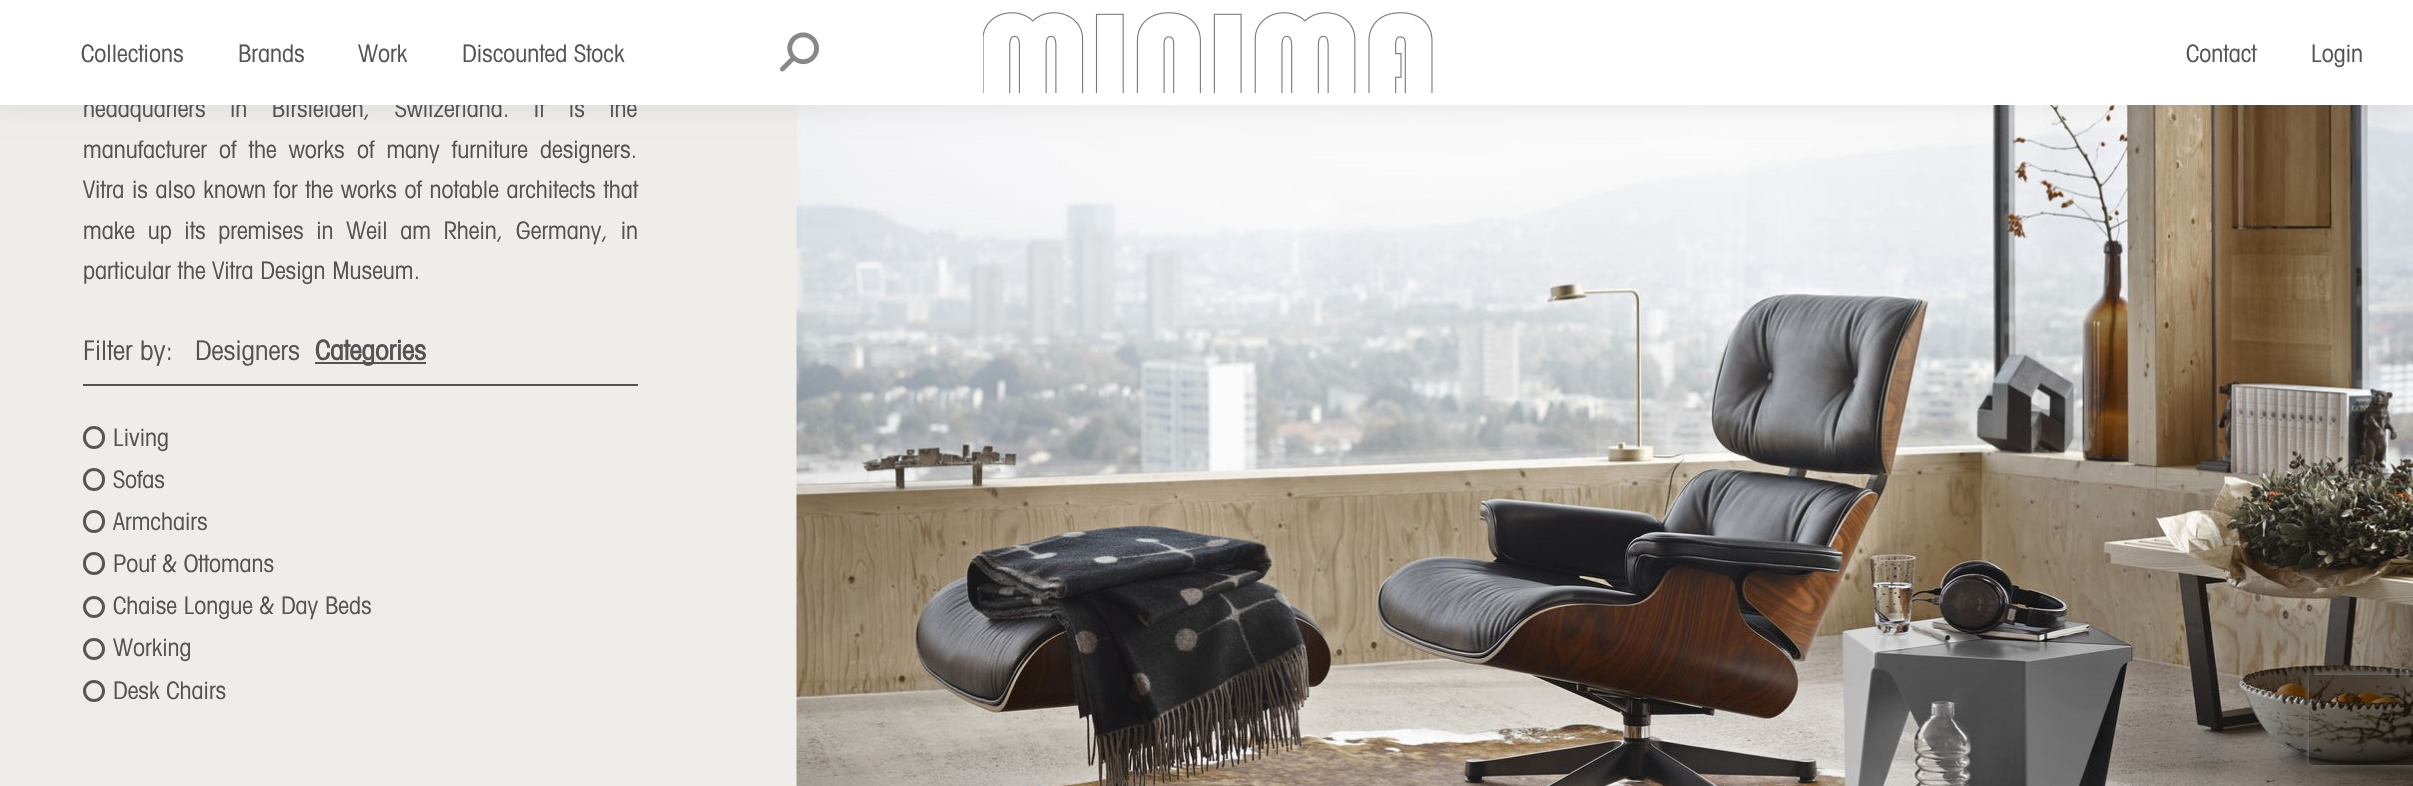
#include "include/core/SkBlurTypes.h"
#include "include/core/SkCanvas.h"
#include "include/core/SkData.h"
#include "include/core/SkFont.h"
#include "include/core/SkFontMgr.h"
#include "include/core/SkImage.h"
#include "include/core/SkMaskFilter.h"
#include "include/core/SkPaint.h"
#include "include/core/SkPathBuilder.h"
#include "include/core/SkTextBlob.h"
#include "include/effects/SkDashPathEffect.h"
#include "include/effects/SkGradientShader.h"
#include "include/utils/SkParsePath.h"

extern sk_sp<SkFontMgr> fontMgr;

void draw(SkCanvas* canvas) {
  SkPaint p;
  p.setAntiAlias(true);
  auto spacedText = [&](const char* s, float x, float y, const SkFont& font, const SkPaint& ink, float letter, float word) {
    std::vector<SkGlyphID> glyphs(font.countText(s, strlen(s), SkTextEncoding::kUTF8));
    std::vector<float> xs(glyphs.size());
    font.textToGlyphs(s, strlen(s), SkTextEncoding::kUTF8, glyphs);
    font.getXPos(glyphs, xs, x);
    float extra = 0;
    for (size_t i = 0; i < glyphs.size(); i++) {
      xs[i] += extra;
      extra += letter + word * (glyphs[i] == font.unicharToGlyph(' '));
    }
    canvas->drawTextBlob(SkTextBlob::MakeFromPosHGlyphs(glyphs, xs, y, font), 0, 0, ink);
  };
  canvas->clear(SkColorSetRGB(239, 237, 234));
  canvas->drawImageRect(SkImages::DeferredFromEncodedData(SkData::MakeFromFileName("images/3.png")), SkRect::MakeLTRB(796, 105, 2413, 786), SkSamplingOptions());
  p.setColor(SkColorSetARGB(18, 0, 0, 0));
  p.setMaskFilter(SkMaskFilter::MakeBlur(kNormal_SkBlurStyle, 11));
  canvas->drawRect(SkRect::MakeLTRB(-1, -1, 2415, 107), p);
  p.setMaskFilter(nullptr);
  p.setColor(SkColorSetRGB(83, 83, 83));
  canvas->drawRect(SkRect::MakeLTRB(83, 384, 638, 386), p);
  canvas->drawRect(SkRect::MakeLTRB(315, 362, 426, 364), p);
  p.setStyle(SkPaint::kStroke_Style);
  p.setStrokeWidth(3);
  p.setColor(SkColorSetRGB(85, 85, 85));
  canvas->drawRoundRect(SkRect::MakeLTRB(84.5f, 427.5f, 103.5f, 447.5f), 9.5f, 9.5f, p);
  canvas->drawRoundRect(SkRect::MakeLTRB(84.5f, 469.5f, 103.5f, 489.5f), 9.5f, 9.5f, p);
  canvas->drawRoundRect(SkRect::MakeLTRB(84.5f, 511.5f, 103.5f, 531.5f), 9.5f, 9.5f, p);
  canvas->drawRoundRect(SkRect::MakeLTRB(84.5f, 553.5f, 103.5f, 573.5f), 9.5f, 9.5f, p);
  canvas->drawCircle(94, 607, 9.5f, p);
  canvas->drawCircle(94, 649, 9.5f, p);
  canvas->drawCircle(94, 691, 9.5f, p);
  canvas->save();
  canvas->clipPath(SkPathBuilder(SkPathFillType::kEvenOdd).moveTo(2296, 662).lineTo(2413, 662).lineTo(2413, 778).lineTo(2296, 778).close().moveTo(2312, 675).lineTo(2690, 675).cubicTo(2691.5f, 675, 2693, 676.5f, 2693, 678).lineTo(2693, 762).cubicTo(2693, 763.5f, 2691.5f, 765, 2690, 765).lineTo(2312, 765).cubicTo(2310.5f, 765, 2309, 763.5f, 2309, 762).lineTo(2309, 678).cubicTo(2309, 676.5f, 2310.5f, 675, 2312, 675).close().detach(), true);
  p.setStyle(SkPaint::kFill_Style);
  p.setColor(SkColorSetRGB(128, 128, 128));
  p.setMaskFilter(SkMaskFilter::MakeBlur(kNormal_SkBlurStyle, 4));
  canvas->drawRoundRect(SkRect::MakeLTRB(2309, 675, 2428, 765), 3, 3, p);
  p.setMaskFilter(nullptr);
  canvas->restore();
  SkFont font1(fontMgr->matchFamilyStyle("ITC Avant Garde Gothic", SkFontStyle::Normal()), 24);
  font1.setSubpixel(true);
  p.setColor(SkColorSetRGB(83, 83, 83));
  spacedText("headquarters in Birsfelden, Switzerland. It is the", 83, 117, font1, p, 0, 17.75f);
  p.setColor(SK_ColorWHITE);
  canvas->drawRect(SkRect::MakeLTRB(0, 0, 2413, 105), p);
  canvas->drawImageRect(SkImages::DeferredFromEncodedData(SkData::MakeFromFileName("images/1.png")), SkRect::MakeLTRB(780, 32, 819, 72), SkSamplingOptions());
  p.setColor(SkColorSetRGB(83, 83, 83));
  canvas->drawString("Login", 2311, 62, font1, p);
  canvas->drawString("Contact", 2186, 62, font1, p);
  canvas->drawString("Discounted Stock", 462, 62, font1, p);
  canvas->drawString("Work", 358, 62, font1, p);
  canvas->drawString("Brands", 238, 62, font1, p);
  canvas->drawString("Collections", 81, 62, font1, p);
  canvas->drawImageRect(SkImages::DeferredFromEncodedData(SkData::MakeFromFileName("images/2.png")), SkRect::MakeLTRB(983, 12, 1433, 93), SkSamplingOptions());
  spacedText("manufacturer of the works of many furniture designers.", 83, 158, font1, p, 0, 5.5f);
  spacedText("Vitra is also known for the works of notable architects that", 83, 198, font1, p, 0, 1);
  spacedText("make up its premises in Weil am Rhein, Germany, in", 83, 239, font1, p, 0, 6);
  canvas->drawString("particular the Vitra Design Museum.", 83, 279, font1, p);
  SkFont font2(fontMgr->matchFamilyStyle("ITC Avant Garde Gothic", SkFontStyle::Normal()), 27);
  font2.setSubpixel(true);
  canvas->drawString("Filter by:", 83, 360, font2, p);
  canvas->drawString("Designers", 195, 360, font2, p);
  SkFont font3(fontMgr->matchFamilyStyle("ITC Avant Garde Gothic", SkFontStyle::Bold()), 27);
  font3.setSubpixel(true);
  canvas->drawString("Categories", 315, 360, font3, p);
  canvas->drawString("Living", 113, 446, font1, p);
  canvas->drawString("Sofas", 113, 488, font1, p);
  canvas->drawString("Armchairs", 113, 530, font1, p);
  canvas->drawString("Pouf & Ottomans", 113, 572, font1, p);
  canvas->drawString("Chaise Longue & Day Beds", 113, 614, font1, p);
  canvas->drawString("Working", 113, 656, font1, p);
  canvas->drawString("Desk Chairs", 113, 699, font1, p);
}
